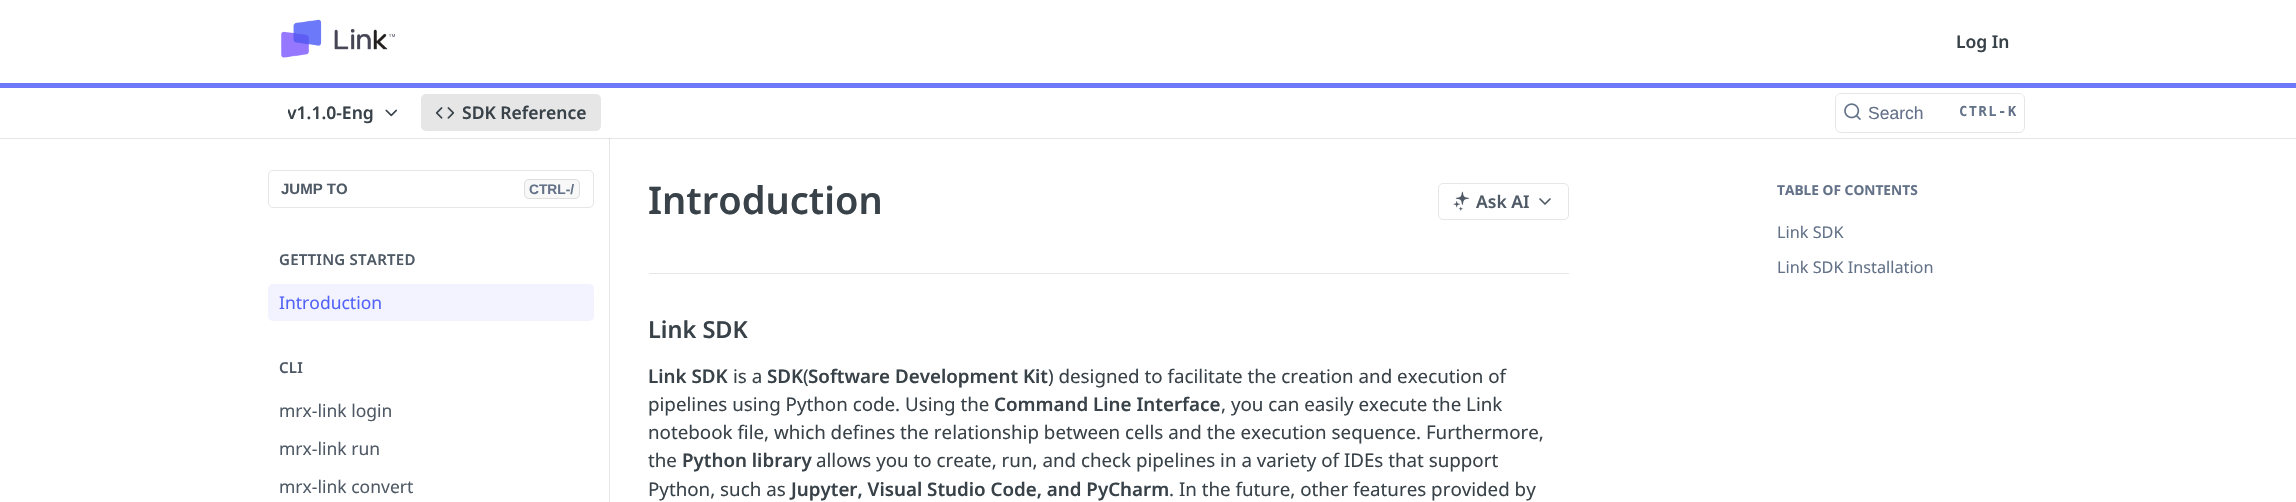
#include "include/core/SkBlurTypes.h"
#include "include/core/SkCanvas.h"
#include "include/core/SkData.h"
#include "include/core/SkFont.h"
#include "include/core/SkFontMgr.h"
#include "include/core/SkImage.h"
#include "include/core/SkMaskFilter.h"
#include "include/core/SkPaint.h"
#include "include/core/SkPathBuilder.h"
#include "include/core/SkTextBlob.h"
#include "include/effects/SkDashPathEffect.h"
#include "include/effects/SkGradientShader.h"
#include "include/utils/SkParsePath.h"

extern sk_sp<SkFontMgr> fontMgr;

void draw(SkCanvas* canvas) {
  SkPaint p;
  p.setAntiAlias(true);
  auto spacedText = [&](const char* s, float x, float y, const SkFont& font, const SkPaint& ink, float letter, float word) {
    std::vector<SkGlyphID> glyphs(font.countText(s, strlen(s), SkTextEncoding::kUTF8));
    std::vector<float> xs(glyphs.size());
    font.textToGlyphs(s, strlen(s), SkTextEncoding::kUTF8, glyphs);
    font.getXPos(glyphs, xs, x);
    float extra = 0;
    for (size_t i = 0; i < glyphs.size(); i++) {
      xs[i] += extra;
      extra += letter + word * (glyphs[i] == font.unicharToGlyph(' '));
    }
    canvas->drawTextBlob(SkTextBlob::MakeFromPosHGlyphs(glyphs, xs, y, font), 0, 0, ink);
  };
  canvas->clear(SK_ColorWHITE);
  p.setColor(SkColorSetRGB(230, 230, 230));
  canvas->drawRect(SkRect::MakeLTRB(0, 138, 2296, 139), p);
  p.setColor(SkColorSetRGB(108, 121, 249));
  canvas->drawRect(SkRect::MakeLTRB(0, 83, 2296, 88), p);
  canvas->drawImageRect(SkImages::DeferredFromEncodedData(SkData::MakeFromFileName("images/1.png")), SkRect::MakeLTRB(281, 19, 395, 58), SkSamplingOptions());
  canvas->drawImageRect(SkImages::DeferredFromEncodedData(SkData::MakeFromFileName("images/2.png")), SkRect::MakeLTRB(385, 109, 397, 117), SkSamplingOptions());
  p.setColor(SkColorSetRGB(230, 230, 230));
  canvas->drawRoundRect(SkRect::MakeLTRB(421, 94, 601, 131), 5, 5, p);
  canvas->drawImageRect(SkImages::DeferredFromEncodedData(SkData::MakeFromFileName("images/3.png")), SkRect::MakeLTRB(435, 107, 455, 119), SkSamplingOptions());
  p.setStyle(SkPaint::kStroke_Style);
  p.setStrokeWidth(1);
  canvas->drawRoundRect(SkRect::MakeLTRB(1835.5f, 93.5f, 2024.5f, 132.5f), 5.5f, 5.5f, p);
  p.setStyle(SkPaint::kFill_Style);
  p.setColor(SK_ColorWHITE);
  canvas->drawRoundRect(SkRect::MakeLTRB(1836, 94, 2024, 131), 5, 5, p);
  canvas->drawImageRect(SkImages::DeferredFromEncodedData(SkData::MakeFromFileName("images/4.png")), SkRect::MakeLTRB(1844, 103, 1861, 120), SkSamplingOptions());
  p.setColor(SkColorSetRGB(230, 230, 230));
  canvas->drawRect(SkRect::MakeLTRB(609, 138, 610, 502), p);
  p.setColor(SkColorSetRGB(207, 207, 207));
  canvas->drawRect(SkRect::MakeLTRB(609, 138, 610, 139), p);
  p.setStyle(SkPaint::kStroke_Style);
  p.setColor(SkColorSetRGB(230, 230, 230));
  canvas->drawRoundRect(SkRect::MakeLTRB(268.5f, 170.5f, 593.5f, 207.5f), 4.5f, 4.5f, p);
  p.setStyle(SkPaint::kFill_Style);
  p.setColor(SkColorSetRGB(248, 248, 248));
  canvas->drawRoundRect(SkRect::MakeLTRB(524, 179, 580, 199), 5, 5, p);
  p.setStyle(SkPaint::kStroke_Style);
  p.setColor(SkColorSetARGB(26, 0, 0, 0));
  canvas->drawRoundRect(SkRect::MakeLTRB(524.5f, 179.5f, 579.5f, 198.5f), 4.5f, 4.5f, p);
  p.setStyle(SkPaint::kFill_Style);
  p.setColor(SkColorSetRGB(242, 243, 254));
  canvas->drawRoundRect(SkRect::MakeLTRB(268, 284, 594, 321), 5, 5, p);
  p.setColor(SkColorSetRGB(230, 230, 230));
  canvas->drawRect(SkRect::MakeLTRB(649, 273, 1569, 274), p);
  p.setStyle(SkPaint::kStroke_Style);
  canvas->drawRoundRect(SkRect::MakeLTRB(1438.5f, 183.5f, 1568.5f, 219.5f), 4.5f, 4.5f, p);
  canvas->drawImageRect(SkImages::DeferredFromEncodedData(SkData::MakeFromFileName("images/5.png")), SkRect::MakeLTRB(1453, 191, 1469, 211), SkSamplingOptions());
  p.setStrokeWidth(1.7f);
  p.setStrokeCap(SkPaint::kRound_Cap);
  p.setStrokeJoin(SkPaint::kRound_Join);
  p.setColor(SkColorSetRGB(79, 90, 102));
  canvas->drawPath(SkPathBuilder().moveTo(1540, 199).lineTo(1545, 204).lineTo(1550, 199).detach(), p);
  SkFont font1(fontMgr->matchFamilyStyle("Noto Sans", SkFontStyle(600, SkFontStyle::kNormal_Width, SkFontStyle::kUpright_Slant)), 17.5f);
  font1.setSubpixel(true);
  p.setStyle(SkPaint::kFill_Style);
  p.setColor(SkColorSetRGB(56, 66, 72));
  canvas->drawString("Log In", 1956, 48, font1, p);
  canvas->save();
  canvas->clipRect(SkRect::MakeLTRB(288, 101, 374, 125));
  canvas->drawString("v1.1.0-Eng", 287, 119, font1, p);
  canvas->restore();
  canvas->drawString("SDK Reference", 462, 119, font1, p);
  SkFont font2(fontMgr->matchFamilyStyle("Liberation Sans", SkFontStyle::Normal()), 17.5f);
  font2.setSubpixel(true);
  p.setColor(SkColorSetRGB(99, 114, 136));
  canvas->drawString("Search", 1868, 119, font2, p);
  SkFont font3(fontMgr->matchFamilyStyle("DejaVu Sans Mono", SkFontStyle::Bold()), 13.75f);
  font3.setSubpixel(true);
  spacedText("CTRL-K", 1959, 116, font3, p, 1.5f, 0);
  SkFont font4(fontMgr->matchFamilyStyle("Liberation Sans", SkFontStyle::Bold()), 15);
  font4.setSubpixel(true);
  p.setColor(SkColorSetRGB(79, 90, 102));
  canvas->drawString("JUMP TO", 281, 194, font4, p);
  SkFont font5(fontMgr->matchFamilyStyle("Liberation Sans", SkFontStyle::Bold()), 13.75f);
  font5.setSubpixel(true);
  p.setColor(SkColorSetRGB(99, 114, 136));
  canvas->drawString("CTRL-/", 529, 194, font5, p);
  SkFont font6(fontMgr->matchFamilyStyle("Noto Sans", SkFontStyle(600, SkFontStyle::kNormal_Width, SkFontStyle::kUpright_Slant)), 15);
  font6.setSubpixel(true);
  p.setColor(SkColorSetRGB(79, 90, 102));
  spacedText("GETTING STARTED", 279, 265, font6, p, 0.25f, 0);
  SkFont font7(fontMgr->matchFamilyStyle("Noto Sans", SkFontStyle::Normal()), 17.5f);
  font7.setSubpixel(true);
  p.setColor(SkColorSetRGB(83, 99, 248));
  canvas->drawString("Introduction", 279, 309, font7, p);
  p.setColor(SkColorSetRGB(79, 90, 102));
  spacedText("CLI", 279, 373, font6, p, 0.25f, 0);
  canvas->drawString("mrx-link login", 279, 417, font7, p);
  canvas->drawString("mrx-link run", 279, 455, font7, p);
  canvas->drawString("mrx-link convert", 279, 493, font7, p);
  SkFont font8(fontMgr->matchFamilyStyle("Noto Sans", SkFontStyle(600, SkFontStyle::kNormal_Width, SkFontStyle::kUpright_Slant)), 38);
  font8.setSubpixel(true);
  p.setColor(SkColorSetRGB(56, 66, 72));
  canvas->drawString("Introduction", 648, 214, font8, p);
  p.setColor(SkColorSetRGB(79, 90, 102));
  canvas->drawString("Ask AI", 1476, 208, font1, p);
  SkFont font9(fontMgr->matchFamilyStyle("Noto Sans", SkFontStyle(600, SkFontStyle::kNormal_Width, SkFontStyle::kUpright_Slant)), 23.5f);
  font9.setSubpixel(true);
  p.setColor(SkColorSetRGB(56, 66, 72));
  canvas->drawString("Link SDK", 648, 338, font9, p);
  SkFont font10(fontMgr->matchFamilyStyle("Noto Sans", SkFontStyle(600, SkFontStyle::kNormal_Width, SkFontStyle::kUpright_Slant)), 18.75f);
  font10.setSubpixel(true);
  canvas->drawString("Link SDK", 648, 383, font10, p);
  SkFont font11(fontMgr->matchFamilyStyle("Noto Sans", SkFontStyle::Normal()), 18.75f);
  font11.setSubpixel(true);
  canvas->drawString("is a", 733, 383, font11, p);
  canvas->drawString("SDK", 767, 383, font10, p);
  canvas->drawString("(", 803, 383, font11, p);
  canvas->drawString("Software Development Kit", 808, 383, font10, p);
  canvas->drawString(") designed to facilitate the creation and execution of", 1048, 383, font11, p);
  canvas->drawString("pipelines using Python code. Using the", 648, 411, font11, p);
  canvas->drawString("Command Line Interface", 994, 411, font10, p);
  canvas->drawString(", you can easily execute the Link", 1221, 411, font11, p);
  canvas->drawString("notebook file, which defines the relationship between cells and the execution sequence. Furthermore,", 648, 439, font11, p);
  canvas->drawString("the", 648, 467, font11, p);
  canvas->drawString("Python library", 682, 467, font10, p);
  canvas->drawString("allows you to create, run, and check pipelines in a variety of IDEs that support", 816, 467, font11, p);
  canvas->drawString("Python, such as", 648, 496, font11, p);
  canvas->drawString("Jupyter, Visual Studio Code, and PyCharm", 791, 496, font10, p);
  canvas->drawString(". In the future, other features provided by", 1169, 496, font11, p);
  SkFont font12(fontMgr->matchFamilyStyle("Noto Sans", SkFontStyle::Bold()), 13.75f);
  font12.setSubpixel(true);
  p.setColor(SkColorSetRGB(99, 114, 136));
  canvas->drawString("TABLE OF CONTENTS", 1777, 195, font12, p);
  SkFont font13(fontMgr->matchFamilyStyle("Noto Sans", SkFontStyle::Normal()), 16.25f);
  font13.setSubpixel(true);
  canvas->drawString("Link SDK", 1777, 238, font13, p);
  canvas->drawString("Link SDK Installation", 1777, 273, font13, p);
}
